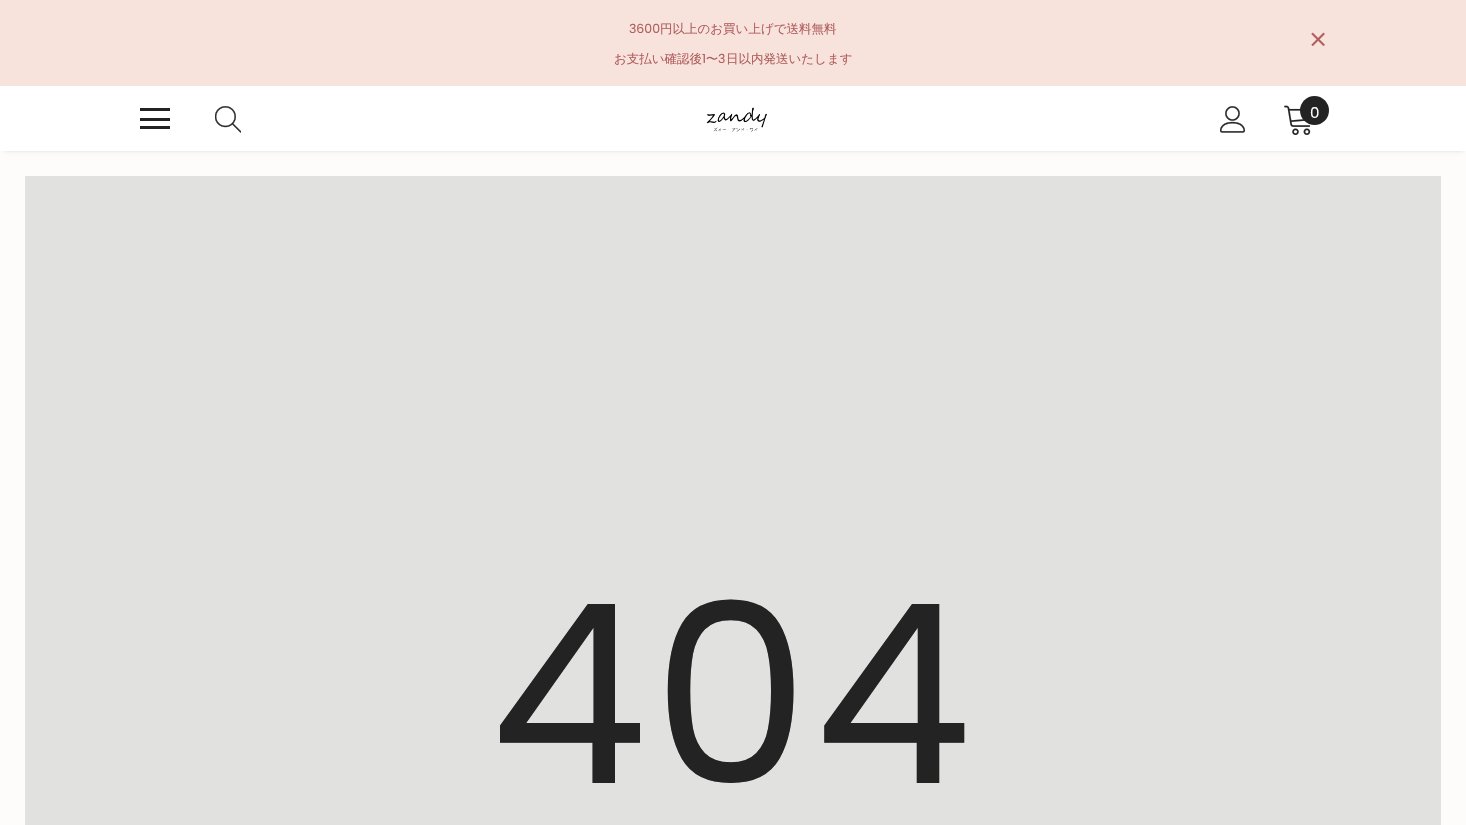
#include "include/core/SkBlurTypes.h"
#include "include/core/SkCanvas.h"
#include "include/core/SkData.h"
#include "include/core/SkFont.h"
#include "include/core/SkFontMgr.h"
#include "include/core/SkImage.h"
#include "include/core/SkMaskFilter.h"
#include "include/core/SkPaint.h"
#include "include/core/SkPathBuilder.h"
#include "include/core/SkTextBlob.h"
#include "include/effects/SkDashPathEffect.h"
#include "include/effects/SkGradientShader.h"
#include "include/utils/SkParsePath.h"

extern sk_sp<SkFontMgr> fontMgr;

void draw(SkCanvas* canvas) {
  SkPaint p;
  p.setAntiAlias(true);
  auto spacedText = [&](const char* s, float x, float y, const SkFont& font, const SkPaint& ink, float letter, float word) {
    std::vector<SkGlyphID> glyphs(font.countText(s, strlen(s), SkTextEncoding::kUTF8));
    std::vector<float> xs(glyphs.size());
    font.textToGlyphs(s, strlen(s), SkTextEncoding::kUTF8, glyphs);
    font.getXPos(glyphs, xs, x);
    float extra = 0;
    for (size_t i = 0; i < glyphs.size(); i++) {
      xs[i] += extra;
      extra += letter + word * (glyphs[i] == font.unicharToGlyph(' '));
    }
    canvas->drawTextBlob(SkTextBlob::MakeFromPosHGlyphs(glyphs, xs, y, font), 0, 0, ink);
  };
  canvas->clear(SkColorSetRGB(253, 252, 250));
  p.setColor(SkColorSetRGB(247, 227, 220));
  canvas->drawRect(SkRect::MakeLTRB(0, 0, 1466, 86), p);
  canvas->drawImageRect(SkImages::DeferredFromEncodedData(SkData::MakeFromFileName("images/1.png")), SkRect::MakeLTRB(1311, 32, 1325, 46), SkSamplingOptions());
  p.setColor(SkColorSetARGB(31, 0, 0, 0));
  p.setMaskFilter(SkMaskFilter::MakeBlur(kNormal_SkBlurStyle, 2));
  canvas->drawRect(SkRect::MakeLTRB(4, 94, 1463, 151), p);
  p.setMaskFilter(nullptr);
  p.setColor(SK_ColorWHITE);
  canvas->drawRect(SkRect::MakeLTRB(0, 86, 1466, 151), p);
  p.setColor(SkColorSetRGB(35, 35, 35));
  canvas->drawRect(SkRect::MakeLTRB(140, 108, 170, 111), p);
  canvas->drawRect(SkRect::MakeLTRB(140, 118, 170, 121), p);
  canvas->drawRect(SkRect::MakeLTRB(140, 126, 170, 129), p);
  canvas->drawImageRect(SkImages::DeferredFromEncodedData(SkData::MakeFromFileName("images/2.png")), SkRect::MakeLTRB(215, 106, 241, 133), SkSamplingOptions());
  canvas->drawImageRect(SkImages::DeferredFromEncodedData(SkData::MakeFromFileName("images/3.png")), SkRect::MakeLTRB(706, 107, 767, 132), SkSamplingOptions());
  canvas->drawImageRect(SkImages::DeferredFromEncodedData(SkData::MakeFromFileName("images/4.png")), SkRect::MakeLTRB(1220, 106, 1246, 133), SkSamplingOptions());
  canvas->drawImageRect(SkImages::DeferredFromEncodedData(SkData::MakeFromFileName("images/5.png")), SkRect::MakeLTRB(1284, 105, 1311, 135), SkSamplingOptions());
  canvas->drawCircle(1314.5f, 110.5f, 14.5f, p);
  p.setColor(SkColorSetRGB(225, 225, 224));
  canvas->drawRect(SkRect::MakeLTRB(25, 176, 1441, 825), p);
  SkFont font1(fontMgr->matchFamilyStyle("Poppins", SkFontStyle::Normal()), 12.5f);
  font1.setSubpixel(true);
  p.setColor(SkColorSetRGB(176, 93, 93));
  canvas->drawString("3600", 629, 33, font1, p);
  SkFont font2(fontMgr->matchFamilyStyle("WenQuanYi Zen Hei", SkFontStyle(500, SkFontStyle::kNormal_Width, SkFontStyle::kUpright_Slant)), 12.5f);
  font2.setSubpixel(true);
  canvas->drawString("円以上のお買い上げで送料無料", 660, 33, font2, p);
  canvas->drawString("お支払い確認後 〜", 614, 63, font2, p);
  canvas->drawString("日以内発送いたします", 726, 63, font2, p);
  canvas->drawString("1", 702, 63, font1, p);
  canvas->drawString("3", 718, 63, font1, p);
  SkFont font3(fontMgr->matchFamilyStyle("Poppins", SkFontStyle::Normal()), 15);
  font3.setSubpixel(true);
  p.setColor(SK_ColorWHITE);
  canvas->drawString("0", 1310, 118, font3, p);
  SkFont font4(fontMgr->matchFamilyStyle("Poppins", SkFontStyle::Normal()), 250);
  font4.setSubpixel(true);
  p.setColor(SkColorSetRGB(35, 35, 35));
  spacedText("404", 490, 783, font4, p, 5, 0);
}
